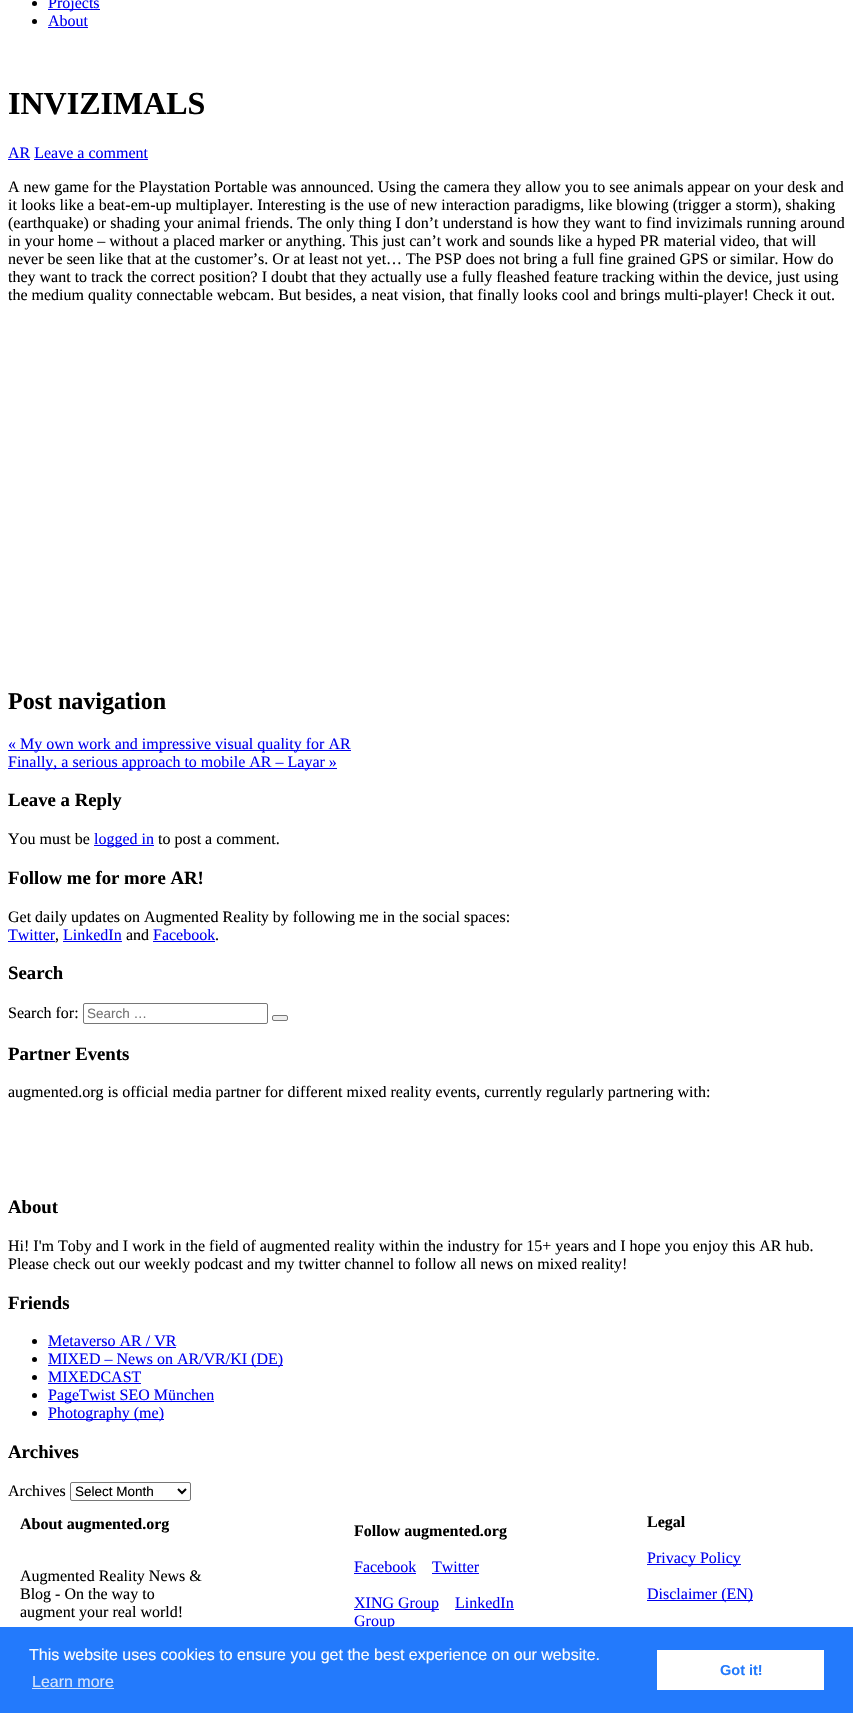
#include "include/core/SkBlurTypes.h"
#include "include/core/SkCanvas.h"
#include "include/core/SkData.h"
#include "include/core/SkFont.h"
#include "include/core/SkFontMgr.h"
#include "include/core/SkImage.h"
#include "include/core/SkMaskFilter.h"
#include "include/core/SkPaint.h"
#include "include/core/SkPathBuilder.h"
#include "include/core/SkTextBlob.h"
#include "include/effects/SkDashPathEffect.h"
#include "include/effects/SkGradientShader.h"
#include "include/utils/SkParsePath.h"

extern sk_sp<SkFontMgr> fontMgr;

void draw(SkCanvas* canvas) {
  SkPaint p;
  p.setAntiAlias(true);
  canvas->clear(SK_ColorWHITE);
  p.setColor(SK_ColorBLACK);
  canvas->drawCircle(34.5f, 3.5f, 2.5f, p);
  p.setColor(SkColorSetRGB(0, 0, 238));
  canvas->drawRect(SkRect::MakeLTRB(48, 9, 100, 10), p);
  p.setColor(SK_ColorBLACK);
  canvas->drawCircle(34.5f, 21.5f, 2.5f, p);
  p.setColor(SkColorSetRGB(0, 0, 238));
  canvas->drawRect(SkRect::MakeLTRB(48, 27, 88, 28), p);
  canvas->drawRect(SkRect::MakeLTRB(8, 159, 30, 160), p);
  canvas->drawRect(SkRect::MakeLTRB(34, 159, 148, 160), p);
  canvas->drawRect(SkRect::MakeLTRB(8, 750, 351, 751), p);
  canvas->drawRect(SkRect::MakeLTRB(8, 768, 337, 769), p);
  canvas->drawRect(SkRect::MakeLTRB(94, 845, 154, 846), p);
  canvas->drawRect(SkRect::MakeLTRB(8, 941, 55, 942), p);
  canvas->drawRect(SkRect::MakeLTRB(63, 941, 122, 942), p);
  canvas->drawRect(SkRect::MakeLTRB(153, 941, 215, 942), p);
  p.setStyle(SkPaint::kStroke_Style);
  p.setStrokeWidth(1);
  p.setColor(SkColorSetRGB(118, 118, 118));
  canvas->drawRoundRect(SkRect::MakeLTRB(83.5f, 1003.5f, 267.5f, 1023.5f), 1.5f, 1.5f, p);
  p.setStyle(SkPaint::kFill_Style);
  p.setColor(SkColorSetRGB(239, 239, 239));
  canvas->drawRoundRect(SkRect::MakeLTRB(272.5f, 1015.5f, 287.5f, 1020.5f), 1.5f, 1.5f, p);
  p.setStyle(SkPaint::kStroke_Style);
  p.setColor(SkColorSetRGB(118, 118, 118));
  canvas->drawRoundRect(SkRect::MakeLTRB(272.5f, 1015.5f, 287.5f, 1020.5f), 1.5f, 1.5f, p);
  p.setStyle(SkPaint::kFill_Style);
  p.setColor(SK_ColorBLACK);
  canvas->drawCircle(34.5f, 1341.5f, 2.5f, p);
  p.setColor(SkColorSetRGB(0, 0, 238));
  canvas->drawRect(SkRect::MakeLTRB(48, 1347, 176, 1348), p);
  p.setColor(SK_ColorBLACK);
  canvas->drawCircle(34.5f, 1359.5f, 2.5f, p);
  p.setColor(SkColorSetRGB(0, 0, 238));
  canvas->drawRect(SkRect::MakeLTRB(48, 1365, 283, 1366), p);
  p.setColor(SK_ColorBLACK);
  canvas->drawCircle(34.5f, 1377.5f, 2.5f, p);
  p.setColor(SkColorSetRGB(0, 0, 238));
  canvas->drawRect(SkRect::MakeLTRB(48, 1383, 141, 1384), p);
  p.setColor(SK_ColorBLACK);
  canvas->drawCircle(34.5f, 1395.5f, 2.5f, p);
  p.setColor(SkColorSetRGB(0, 0, 238));
  canvas->drawRect(SkRect::MakeLTRB(48, 1401, 214, 1402), p);
  p.setColor(SK_ColorBLACK);
  canvas->drawCircle(34.5f, 1413.5f, 2.5f, p);
  p.setColor(SkColorSetRGB(0, 0, 238));
  canvas->drawRect(SkRect::MakeLTRB(48, 1419, 164, 1420), p);
  p.setStyle(SkPaint::kStroke_Style);
  p.setColor(SkColorSetRGB(118, 118, 118));
  canvas->drawRoundRect(SkRect::MakeLTRB(70.5f, 1482.5f, 190.5f, 1500.5f), 1.5f, 1.5f, p);
  p.setStrokeWidth(2);
  p.setColor(SK_ColorBLACK);
  canvas->drawPath(SkPathBuilder().moveTo(178, 1489).lineTo(182, 1493).lineTo(186, 1489).detach(), p);
  p.setStyle(SkPaint::kFill_Style);
  p.setColor(SkColorSetRGB(0, 0, 238));
  canvas->drawRect(SkRect::MakeLTRB(354, 1573, 416, 1574), p);
  canvas->drawRect(SkRect::MakeLTRB(432, 1573, 479, 1574), p);
  canvas->drawRect(SkRect::MakeLTRB(354, 1609, 439, 1610), p);
  canvas->drawRect(SkRect::MakeLTRB(455, 1609, 514, 1610), p);
  canvas->drawRect(SkRect::MakeLTRB(647, 1564, 741, 1565), p);
  canvas->drawRect(SkRect::MakeLTRB(647, 1600, 753, 1601), p);
  SkFont font1(fontMgr->matchFamilyStyle("Liberation Serif", SkFontStyle::Normal()), 16);
  font1.setSubpixel(true);
  canvas->drawString("Projects", 48, 8, font1, p);
  canvas->drawString("About", 48, 26, font1, p);
  SkFont font2(fontMgr->matchFamilyStyle("Liberation Serif", SkFontStyle::Bold()), 32);
  font2.setSubpixel(true);
  p.setColor(SK_ColorBLACK);
  canvas->drawString("INVIZIMALS", 8, 114, font2, p);
  p.setColor(SkColorSetRGB(0, 0, 238));
  canvas->drawString("AR Leave a comment", 8, 158, font1, p);
  p.setColor(SK_ColorBLACK);
  canvas->drawString("A new game for the Playstation Portable was announced. Using the camera they allow you to see animals appear on your desk and", 8, 192, font1, p);
  canvas->drawString("it looks like a beat-em-up multiplayer. Interesting is the use of new interaction paradigms, like blowing (trigger a storm), shaking", 8, 210, font1, p);
  canvas->drawString("(earthquake) or shading your animal friends. The only thing I don’t understand is how they want to find invizimals running around", 8, 228, font1, p);
  canvas->drawString("in your home – without a placed marker or anything. This just can’t work and sounds like a hyped PR material video, that will", 8, 246, font1, p);
  canvas->drawString("never be seen like that at the customer’s. Or at least not yet… The PSP does not bring a full fine grained GPS or similar. How do", 8, 264, font1, p);
  canvas->drawString("they want to track the correct position? I doubt that they actually use a fully fleashed feature tracking within the device, just using", 8, 282, font1, p);
  canvas->drawString("the medium quality connectable webcam. But besides, a neat vision, that finally looks cool and brings multi-player! Check it out.", 8, 300, font1, p);
  SkFont font3(fontMgr->matchFamilyStyle("Liberation Serif", SkFontStyle::Bold()), 24);
  font3.setSubpixel(true);
  canvas->drawString("Post navigation", 8, 709, font3, p);
  p.setColor(SkColorSetRGB(0, 0, 238));
  canvas->drawString("« My own work and impressive visual quality for AR", 8, 749, font1, p);
  canvas->drawString("Finally, a serious approach to mobile AR – Layar »", 8, 767, font1, p);
  SkFont font4(fontMgr->matchFamilyStyle("Liberation Serif", SkFontStyle::Bold()), 18.75f);
  font4.setSubpixel(true);
  p.setColor(SK_ColorBLACK);
  canvas->drawString("Leave a Reply", 8, 806, font4, p);
  canvas->drawString("You must be", 8, 844, font1, p);
  p.setColor(SkColorSetRGB(0, 0, 238));
  canvas->drawString("logged in", 94, 844, font1, p);
  p.setColor(SK_ColorBLACK);
  canvas->drawString("to post a comment.", 158, 844, font1, p);
  canvas->drawString("Follow me for more AR!", 8, 884, font4, p);
  canvas->drawString("Get daily updates on Augmented Reality by following me in the social spaces:", 8, 922, font1, p);
  p.setColor(SkColorSetRGB(0, 0, 238));
  canvas->drawString("Twitter", 8, 940, font1, p);
  p.setColor(SK_ColorBLACK);
  canvas->drawString(",", 55, 940, font1, p);
  p.setColor(SkColorSetRGB(0, 0, 238));
  canvas->drawString("LinkedIn", 63, 940, font1, p);
  p.setColor(SK_ColorBLACK);
  canvas->drawString("and", 126, 940, font1, p);
  p.setColor(SkColorSetRGB(0, 0, 238));
  canvas->drawString("Facebook", 153, 940, font1, p);
  p.setColor(SK_ColorBLACK);
  canvas->drawString(".", 215, 940, font1, p);
  canvas->drawString("Search", 8, 979, font4, p);
  canvas->drawString("Search for:", 8, 1018, font1, p);
  SkFont font5(fontMgr->matchFamilyStyle("Liberation Sans", SkFontStyle::Normal()), 13.5f);
  font5.setSubpixel(true);
  p.setColor(SkColorSetRGB(117, 117, 117));
  canvas->drawString("Search …", 87, 1018, font5, p);
  p.setColor(SK_ColorBLACK);
  canvas->drawString("Partner Events", 8, 1060, font4, p);
  canvas->drawString("augmented.org is official media partner for different mixed reality events, currently regularly partnering with:", 8, 1097, font1, p);
  canvas->drawString("About", 8, 1213, font4, p);
  canvas->drawString("Hi! I'm Toby and I work in the field of augmented reality within the industry for 15+ years and I hope you enjoy this AR hub.", 8, 1251, font1, p);
  canvas->drawString("Please check out our weekly podcast and my twitter channel to follow all news on mixed reality!", 8, 1269, font1, p);
  canvas->drawString("Friends", 8, 1309, font4, p);
  p.setColor(SkColorSetRGB(0, 0, 238));
  canvas->drawString("Metaverso AR / VR", 48, 1346, font1, p);
  canvas->drawString("MIXED – News on AR/VR/KI (DE)", 48, 1364, font1, p);
  canvas->drawString("MIXEDCAST", 48, 1382, font1, p);
  canvas->drawString("PageTwist SEO München", 48, 1400, font1, p);
  canvas->drawString("Photography (me)", 48, 1418, font1, p);
  p.setColor(SK_ColorBLACK);
  canvas->drawString("Archives", 8, 1458, font4, p);
  canvas->drawString("Archives", 8, 1496, font1, p);
  canvas->drawString("Select Month", 75, 1496, font5, p);
  SkFont font6(fontMgr->matchFamilyStyle("Liberation Serif", SkFontStyle::Bold()), 16);
  font6.setSubpixel(true);
  canvas->drawString("About augmented.org", 20, 1529, font6, p);
  canvas->drawString("Augmented Reality News &", 20, 1581, font1, p);
  canvas->drawString("Blog - On the way to", 20, 1599, font1, p);
  canvas->drawString("augment your real world!", 20, 1617, font1, p);
  canvas->drawString("Follow augmented.org", 354, 1536, font6, p);
  p.setColor(SkColorSetRGB(0, 0, 238));
  canvas->drawString("Facebook", 354, 1572, font1, p);
  canvas->drawString("Twitter", 432, 1572, font1, p);
  canvas->drawString("XING Group", 354, 1608, font1, p);
  canvas->drawString("LinkedIn", 455, 1608, font1, p);
  canvas->drawString("Group", 354, 1626, font1, p);
  p.setColor(SK_ColorBLACK);
  canvas->drawString("Legal", 647, 1527, font6, p);
  p.setColor(SkColorSetRGB(0, 0, 238));
  canvas->drawString("Privacy Policy", 647, 1563, font1, p);
  canvas->drawString("Disclaimer (EN)", 647, 1599, font1, p);
  p.setColor(SkColorSetRGB(35, 122, 252));
  canvas->drawRect(SkRect::MakeLTRB(0, 1627, 853, 1713), p);
  SkFont font7(fontMgr->matchFamilyStyle("Liberation Sans", SkFontStyle::Normal()), 16);
  font7.setSubpixel(true);
  p.setColor(SK_ColorWHITE);
  canvas->drawString("This website uses cookies to ensure you get the best experience on our website.", 29, 1660, font7, p);
  p.setColor(SkColorSetRGB(211, 228, 254));
  canvas->drawString("Learn more", 32, 1687, font7, p);
  canvas->drawRect(SkRect::MakeLTRB(32, 1688, 114, 1689), p);
  p.setColor(SK_ColorWHITE);
  canvas->drawRect(SkRect::MakeLTRB(657, 1650, 824, 1690), p);
  SkFont font8(fontMgr->matchFamilyStyle("Liberation Sans", SkFontStyle::Bold()), 14.5f);
  font8.setSubpixel(true);
  p.setColor(SkColorSetRGB(35, 122, 252));
  canvas->drawString("Got it!", 720, 1675, font8, p);
}
